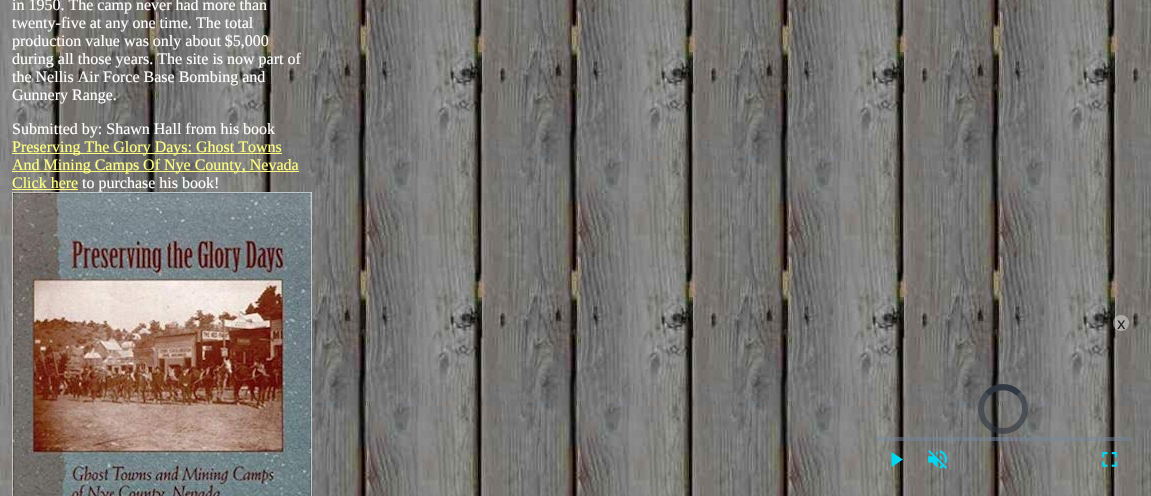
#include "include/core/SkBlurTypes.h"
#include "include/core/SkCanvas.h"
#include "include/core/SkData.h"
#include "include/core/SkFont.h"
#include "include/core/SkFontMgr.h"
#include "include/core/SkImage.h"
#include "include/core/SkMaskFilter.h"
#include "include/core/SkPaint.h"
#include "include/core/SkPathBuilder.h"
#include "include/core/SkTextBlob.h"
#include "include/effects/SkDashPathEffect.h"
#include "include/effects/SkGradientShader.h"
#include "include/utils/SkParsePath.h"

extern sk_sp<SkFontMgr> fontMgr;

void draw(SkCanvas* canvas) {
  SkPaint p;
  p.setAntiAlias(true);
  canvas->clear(SK_ColorWHITE);
  canvas->drawImageRect(SkImages::DeferredFromEncodedData(SkData::MakeFromFileName("images/1.png")), SkRect::MakeLTRB(0, 0, 1151, 496), SkSamplingOptions());
  p.setColor(SkColorSetRGB(255, 255, 128));
  canvas->drawRect(SkRect::MakeLTRB(12, 153, 282, 154), p);
  canvas->drawRect(SkRect::MakeLTRB(12, 171, 299, 172), p);
  canvas->drawRect(SkRect::MakeLTRB(12, 189, 78, 190), p);
  canvas->drawImageRect(SkImages::DeferredFromEncodedData(SkData::MakeFromFileName("images/2.png")), SkRect::MakeLTRB(12, 192, 312, 496), SkSamplingOptions());
  p.setColor(SkColorSetARGB(102, 255, 255, 255));
  canvas->drawCircle(1121, 323, 8, p);
  p.setStyle(SkPaint::kStroke_Style);
  p.setStrokeWidth(6);
  p.setColor(SkColorSetARGB(150, 43, 51, 63));
  canvas->drawCircle(1003, 409, 22, p);
  canvas->drawPath(SkPathBuilder().moveTo(987.5f, 393.5f).cubicTo(996, 385, 1010, 385, 1018.5f, 393.5f).detach(), p);
  canvas->drawPath(SkPathBuilder().moveTo(987.5f, 393.5f).cubicTo(996, 385, 1010, 385, 1018.5f, 393.5f).detach(), p);
  p.setStyle(SkPaint::kFill_Style);
  p.setColor(SkColorSetARGB(128, 115, 133, 159));
  canvas->drawRect(SkRect::MakeLTRB(875, 437, 1131, 441), p);
  p.setColor(SkColorSetRGB(3, 216, 243));
  canvas->drawPath(SkPathBuilder().moveTo(891.5f, 452).lineTo(891.5f, 467).lineTo(903, 459.5f).close().detach(), p);
  canvas->drawImageRect(SkImages::DeferredFromEncodedData(SkData::MakeFromFileName("images/3.png")), SkRect::MakeLTRB(928, 450, 947, 469), SkSamplingOptions());
  canvas->drawImageRect(SkImages::DeferredFromEncodedData(SkData::MakeFromFileName("images/4.png")), SkRect::MakeLTRB(1102, 452, 1117, 467), SkSamplingOptions());
  SkFont font1(fontMgr->matchFamilyStyle("Liberation Serif", SkFontStyle::Normal()), 16);
  font1.setSubpixel(true);
  p.setColor(SK_ColorWHITE);
  canvas->drawString("in 1950. The camp never had more than", 12, 10, font1, p);
  canvas->drawString("twenty-five at any one time. The total", 12, 28, font1, p);
  canvas->drawString("production value was only about $5,000", 12, 46, font1, p);
  canvas->drawString("during all those years. The site is now part of", 12, 64, font1, p);
  canvas->drawString("the Nellis Air Force Base Bombing and", 12, 82, font1, p);
  canvas->drawString("Gunnery Range.", 12, 100, font1, p);
  canvas->drawString("Submitted by: Shawn Hall from his book", 12, 134, font1, p);
  p.setColor(SkColorSetRGB(255, 255, 128));
  canvas->drawString("Preserving The Glory Days: Ghost Towns", 12, 152, font1, p);
  canvas->drawString("And Mining Camps Of Nye County, Nevada", 12, 170, font1, p);
  canvas->drawString("Click here", 12, 188, font1, p);
  p.setColor(SK_ColorWHITE);
  canvas->drawString("to purchase his book!", 82, 188, font1, p);
  SkFont font2(fontMgr->matchFamilyStyle("Noto Sans", SkFontStyle::Normal()), 16);
  font2.setSubpixel(true);
  p.setColor(SkColorSetRGB(34, 34, 33));
  canvas->drawString("x", 1117, 329, font2, p);
}
